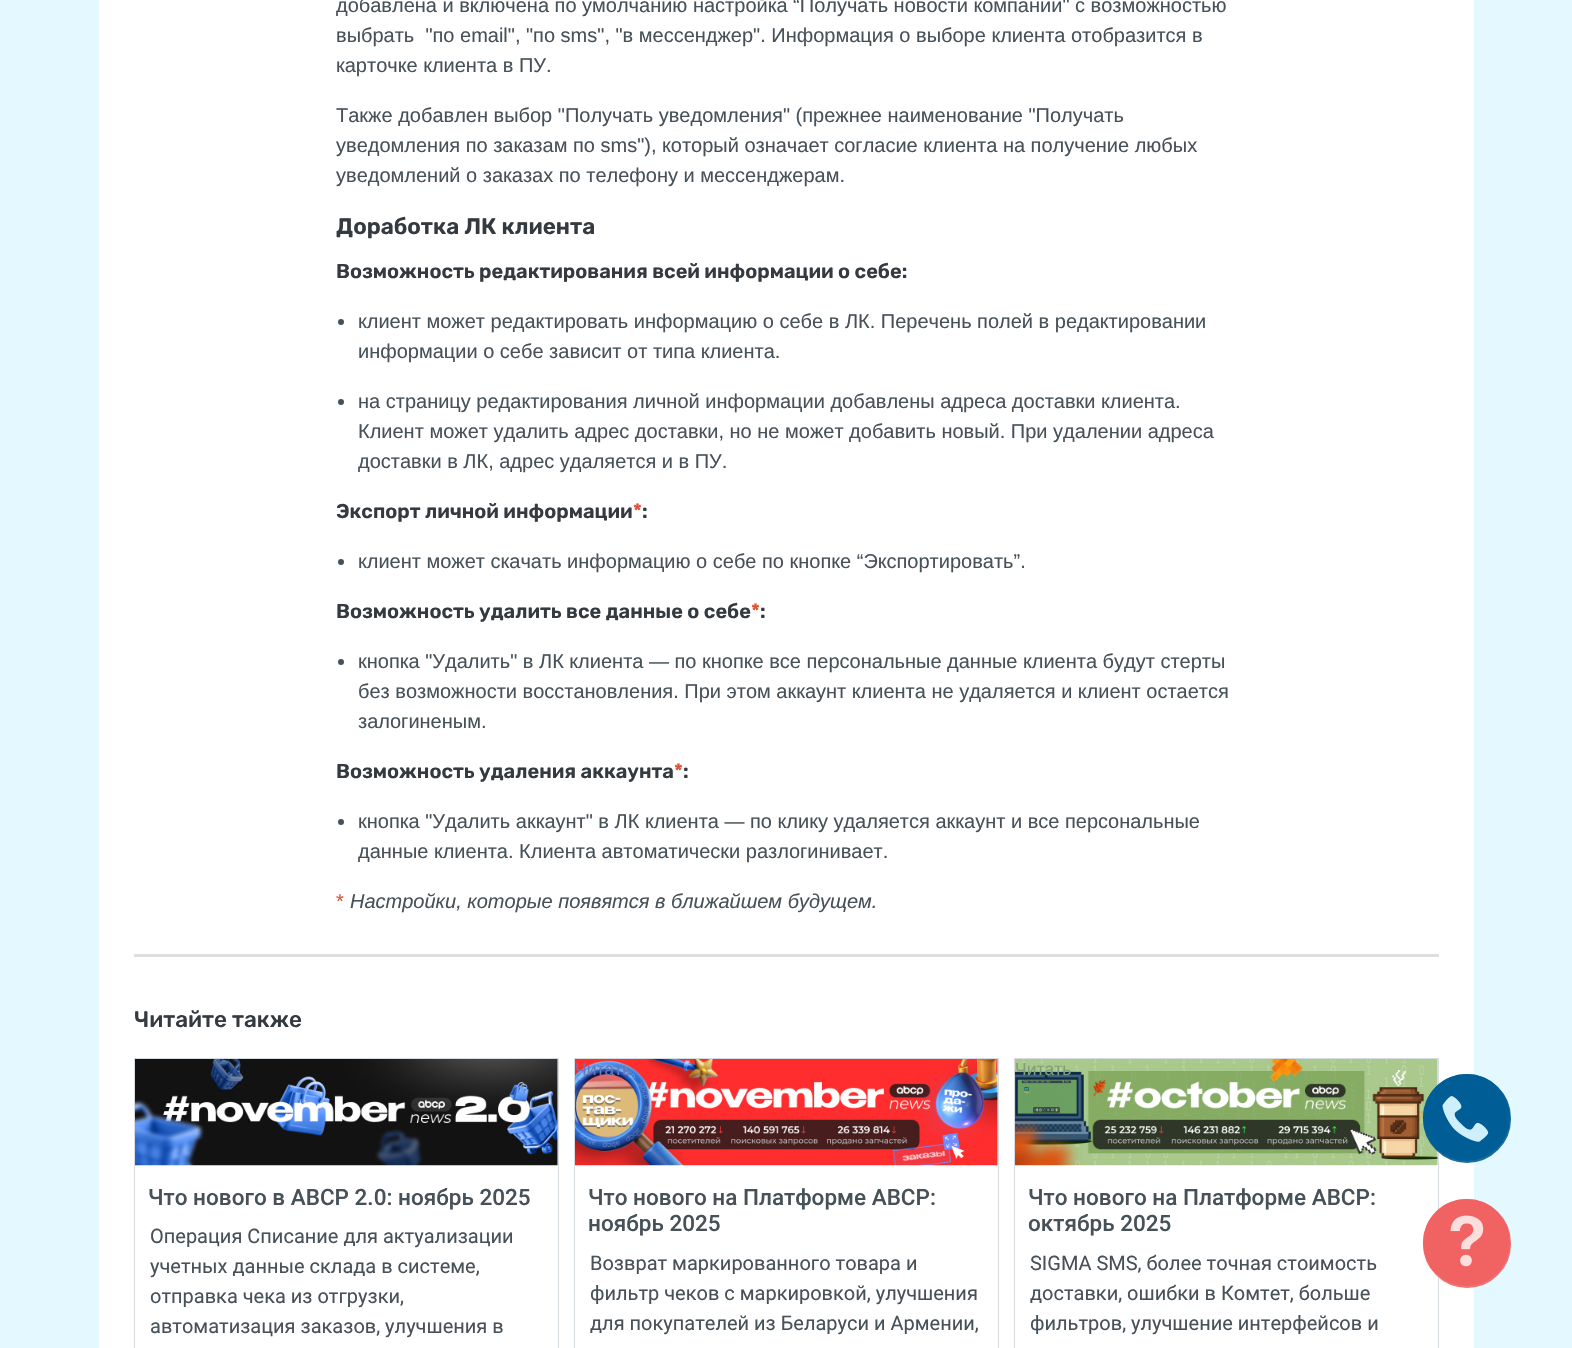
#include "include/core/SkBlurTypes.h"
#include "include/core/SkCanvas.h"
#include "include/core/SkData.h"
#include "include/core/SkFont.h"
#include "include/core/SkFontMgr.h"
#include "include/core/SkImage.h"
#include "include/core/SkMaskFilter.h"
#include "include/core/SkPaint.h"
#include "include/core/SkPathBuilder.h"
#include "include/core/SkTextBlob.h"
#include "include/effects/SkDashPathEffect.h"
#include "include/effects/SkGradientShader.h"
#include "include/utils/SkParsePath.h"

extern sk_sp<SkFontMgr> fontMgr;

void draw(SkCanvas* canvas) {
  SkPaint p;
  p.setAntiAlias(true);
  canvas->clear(SkColorSetRGB(227, 248, 255));
  p.setColor(SK_ColorWHITE);
  canvas->drawRect(SkRect::MakeLTRB(99, 0, 1474, 1348), p);
  p.setColor(SkColorSetRGB(70, 81, 88));
  canvas->drawCircle(341, 322, 3, p);
  canvas->drawCircle(341, 402, 3, p);
  canvas->drawCircle(341, 562, 3, p);
  canvas->drawCircle(341, 662, 3, p);
  canvas->drawCircle(341, 822, 3, p);
  p.setColor(SkColorSetRGB(222, 222, 222));
  canvas->drawRect(SkRect::MakeLTRB(134, 954, 1439, 957), p);
  p.setStyle(SkPaint::kStroke_Style);
  p.setStrokeWidth(1);
  p.setColor(SkColorSetRGB(215, 220, 224));
  canvas->drawRect(SkRect::MakeLTRB(134.5f, 1058.5f, 558.5f, 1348.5f), p);
  canvas->drawImageRect(SkImages::DeferredFromEncodedData(SkData::MakeFromFileName("images/1.png")), SkRect::MakeLTRB(135, 1059, 558, 1166), SkSamplingOptions());
  canvas->drawRect(SkRect::MakeLTRB(574.5f, 1058.5f, 998.5f, 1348.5f), p);
  canvas->drawImageRect(SkImages::DeferredFromEncodedData(SkData::MakeFromFileName("images/2.png")), SkRect::MakeLTRB(575, 1059, 998, 1166), SkSamplingOptions());
  canvas->drawRect(SkRect::MakeLTRB(1014.5f, 1058.5f, 1438.5f, 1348.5f), p);
  canvas->drawImageRect(SkImages::DeferredFromEncodedData(SkData::MakeFromFileName("images/3.png")), SkRect::MakeLTRB(1015, 1059, 1438, 1166), SkSamplingOptions());
  p.setStyle(SkPaint::kFill_Style);
  p.setColor(SkColorSetRGB(0, 93, 150));
  canvas->drawCircle(1466.5f, 1117.5f, 43.5f, p);
  canvas->drawImageRect(SkImages::DeferredFromEncodedData(SkData::MakeFromFileName("images/4.png")), SkRect::MakeLTRB(1442, 1096, 1489, 1142), SkSamplingOptions());
  p.setStyle(SkPaint::kStroke_Style);
  p.setStrokeWidth(5);
  p.setColor(SkColorSetARGB(230, 0, 93, 150));
  canvas->drawRoundRect(SkRect::MakeLTRB(1425.5f, 1076.5f, 1508.5f, 1160.5f), 41.5f, 41.5f, p);
  p.setStyle(SkPaint::kFill_Style);
  p.setColor(SkColorSetRGB(241, 98, 98));
  canvas->drawCircle(1466.5f, 1242.5f, 43.5f, p);
  canvas->drawImageRect(SkImages::DeferredFromEncodedData(SkData::MakeFromFileName("images/5.png")), SkRect::MakeLTRB(1450, 1215, 1484, 1267), SkSamplingOptions());
  p.setStyle(SkPaint::kStroke_Style);
  p.setColor(SkColorSetARGB(230, 241, 98, 98));
  canvas->drawRoundRect(SkRect::MakeLTRB(1425.5f, 1201.5f, 1508.5f, 1285.5f), 41.5f, 41.5f, p);
  SkFont font1(fontMgr->matchFamilyStyle("Liberation Sans", SkFontStyle::Normal()), 20);
  font1.setSubpixel(true);
  p.setStyle(SkPaint::kFill_Style);
  p.setColor(SkColorSetRGB(70, 81, 88));
  canvas->drawString("добавлена и включена по умолчанию настройка “Получать новости компании\" с возможностью", 336, 12, font1, p);
  canvas->drawString("выбрать  \"по email\", \"по sms\", \"в мессенджер\". Информация о выборе клиента отобразится в", 336, 42, font1, p);
  canvas->drawString("карточке клиента в ПУ.", 336, 72, font1, p);
  canvas->drawString("Также добавлен выбор \"Получать уведомления\" (прежнее наименование \"Получать", 336, 122, font1, p);
  canvas->drawString("уведомления по заказам по sms\"), который означает согласие клиента на получение любых", 336, 152, font1, p);
  canvas->drawString("уведомлений о заказах по телефону и мессенджерам.", 336, 182, font1, p);
  SkFont font2(fontMgr->matchFamilyStyle("Rubik", SkFontStyle(600, SkFontStyle::kNormal_Width, SkFontStyle::kUpright_Slant)), 22.5f);
  font2.setSubpixel(true);
  p.setColor(SkColorSetRGB(51, 58, 64));
  canvas->drawString("Доработка ЛК клиента", 336, 234, font2, p);
  SkFont font3(fontMgr->matchFamilyStyle("Rubik", SkFontStyle(600, SkFontStyle::kNormal_Width, SkFontStyle::kUpright_Slant)), 20);
  font3.setSubpixel(true);
  canvas->drawString("Возможность редактирования всей информации о себе:", 336, 278, font3, p);
  p.setColor(SkColorSetRGB(70, 81, 88));
  canvas->drawString("клиент может редактировать информацию о себе в ЛК. Перечень полей в редактировании", 358, 328, font1, p);
  canvas->drawString("информации о себе зависит от типа клиента.", 358, 358, font1, p);
  canvas->drawString("на страницу редактирования личной информации добавлены адреса доставки клиента.", 358, 408, font1, p);
  canvas->drawString("Клиент может удалить адрес доставки, но не может добавить новый. При удалении адреса", 358, 438, font1, p);
  canvas->drawString("доставки в ЛК, адрес удаляется и в ПУ.", 358, 468, font1, p);
  p.setColor(SkColorSetRGB(51, 58, 64));
  canvas->drawString("Экспорт личной информации", 336, 518, font3, p);
  p.setColor(SkColorSetRGB(224, 83, 57));
  canvas->drawString("*", 633, 518, font3, p);
  p.setColor(SkColorSetRGB(51, 58, 64));
  canvas->drawString(":", 642, 518, font3, p);
  p.setColor(SkColorSetRGB(70, 81, 88));
  canvas->drawString("клиент может скачать информацию о себе по кнопке “Экспортировать”.", 358, 568, font1, p);
  p.setColor(SkColorSetRGB(51, 58, 64));
  canvas->drawString("Возможность удалить все данные о себе", 336, 618, font3, p);
  p.setColor(SkColorSetRGB(224, 83, 57));
  canvas->drawString("*", 751, 618, font3, p);
  p.setColor(SkColorSetRGB(51, 58, 64));
  canvas->drawString(":", 760, 618, font3, p);
  p.setColor(SkColorSetRGB(70, 81, 88));
  canvas->drawString("кнопка \"Удалить\" в ЛК клиента — по кнопке все персональные данные клиента будут стерты", 358, 668, font1, p);
  canvas->drawString("без возможности восстановления. При этом аккаунт клиента не удаляется и клиент остается", 358, 698, font1, p);
  canvas->drawString("залогиненым.", 358, 728, font1, p);
  p.setColor(SkColorSetRGB(51, 58, 64));
  canvas->drawString("Возможность удаления аккаунта", 336, 778, font3, p);
  p.setColor(SkColorSetRGB(224, 83, 57));
  canvas->drawString("*", 674, 778, font3, p);
  p.setColor(SkColorSetRGB(51, 58, 64));
  canvas->drawString(":", 683, 778, font3, p);
  p.setColor(SkColorSetRGB(70, 81, 88));
  canvas->drawString("кнопка \"Удалить аккаунт\" в ЛК клиента — по клику удаляется аккаунт и все персональные", 358, 828, font1, p);
  canvas->drawString("данные клиента. Клиента автоматически разлогинивает.", 358, 858, font1, p);
  p.setColor(SkColorSetRGB(224, 83, 57));
  canvas->drawString("*", 336, 908, font1, p);
  SkFont font4(fontMgr->matchFamilyStyle("Liberation Sans", SkFontStyle::Italic()), 20);
  font4.setSubpixel(true);
  p.setColor(SkColorSetRGB(70, 81, 88));
  canvas->drawString("Настройки, которые появятся в ближайшем будущем.", 350, 908, font4, p);
  SkFont font5(fontMgr->matchFamilyStyle("Rubik", SkFontStyle(500, SkFontStyle::kNormal_Width, SkFontStyle::kUpright_Slant)), 22.5f);
  font5.setSubpixel(true);
  p.setColor(SkColorSetRGB(51, 58, 64));
  canvas->drawString("Читайте также", 134, 1027, font5, p);
  SkFont font6(fontMgr->matchFamilyStyle("Roboto", SkFontStyle(500, SkFontStyle::kNormal_Width, SkFontStyle::kUpright_Slant)), 22.5f);
  font6.setSubpixel(true);
  p.setColor(SkColorSetRGB(70, 81, 88));
  canvas->drawString("Что нового в ABCP 2.0: ноябрь 2025", 148, 1205, font6, p);
  SkFont font7(fontMgr->matchFamilyStyle("Roboto", SkFontStyle::Normal()), 20);
  font7.setSubpixel(true);
  canvas->drawString("Операция Списание для актуализации", 150, 1243, font7, p);
  canvas->drawString("учетных данные склада в системе,", 150, 1273, font7, p);
  canvas->drawString("отправка чека из отгрузки,", 150, 1303, font7, p);
  canvas->drawString("автоматизация заказов, улучшения в", 150, 1333, font7, p);
  SkFont font8(fontMgr->matchFamilyStyle("Liberation Sans", SkFontStyle::Normal()), 17.5f);
  font8.setSubpixel(true);
  p.setColor(SkColorSetRGB(106, 119, 182));
  canvas->drawString("Читать", 575, 1075, font8, p);
  p.setColor(SkColorSetRGB(70, 81, 88));
  canvas->drawString("Что нового на Платформе ABCP:", 588, 1205, font6, p);
  canvas->drawString("ноябрь 2025", 588, 1231, font6, p);
  canvas->drawString("Возврат маркированного товара и", 590, 1270, font7, p);
  canvas->drawString("фильтр чеков с маркировкой, улучшения", 590, 1300, font7, p);
  canvas->drawString("для покупателей из Беларуси и Армении,", 590, 1330, font7, p);
  p.setColor(SkColorSetRGB(128, 158, 123));
  canvas->drawString("Читать", 1015, 1075, font8, p);
  p.setColor(SkColorSetRGB(70, 81, 88));
  canvas->drawString("Что нового на Платформе ABCP:", 1028, 1205, font6, p);
  canvas->drawString("октябрь 2025", 1028, 1231, font6, p);
  canvas->drawString("SIGMA SMS, более точная стоимость", 1030, 1270, font7, p);
  canvas->drawString("доставки, ошибки в Комтет, больше", 1030, 1300, font7, p);
  canvas->drawString("фильтров, улучшение интерфейсов и", 1030, 1330, font7, p);
}
